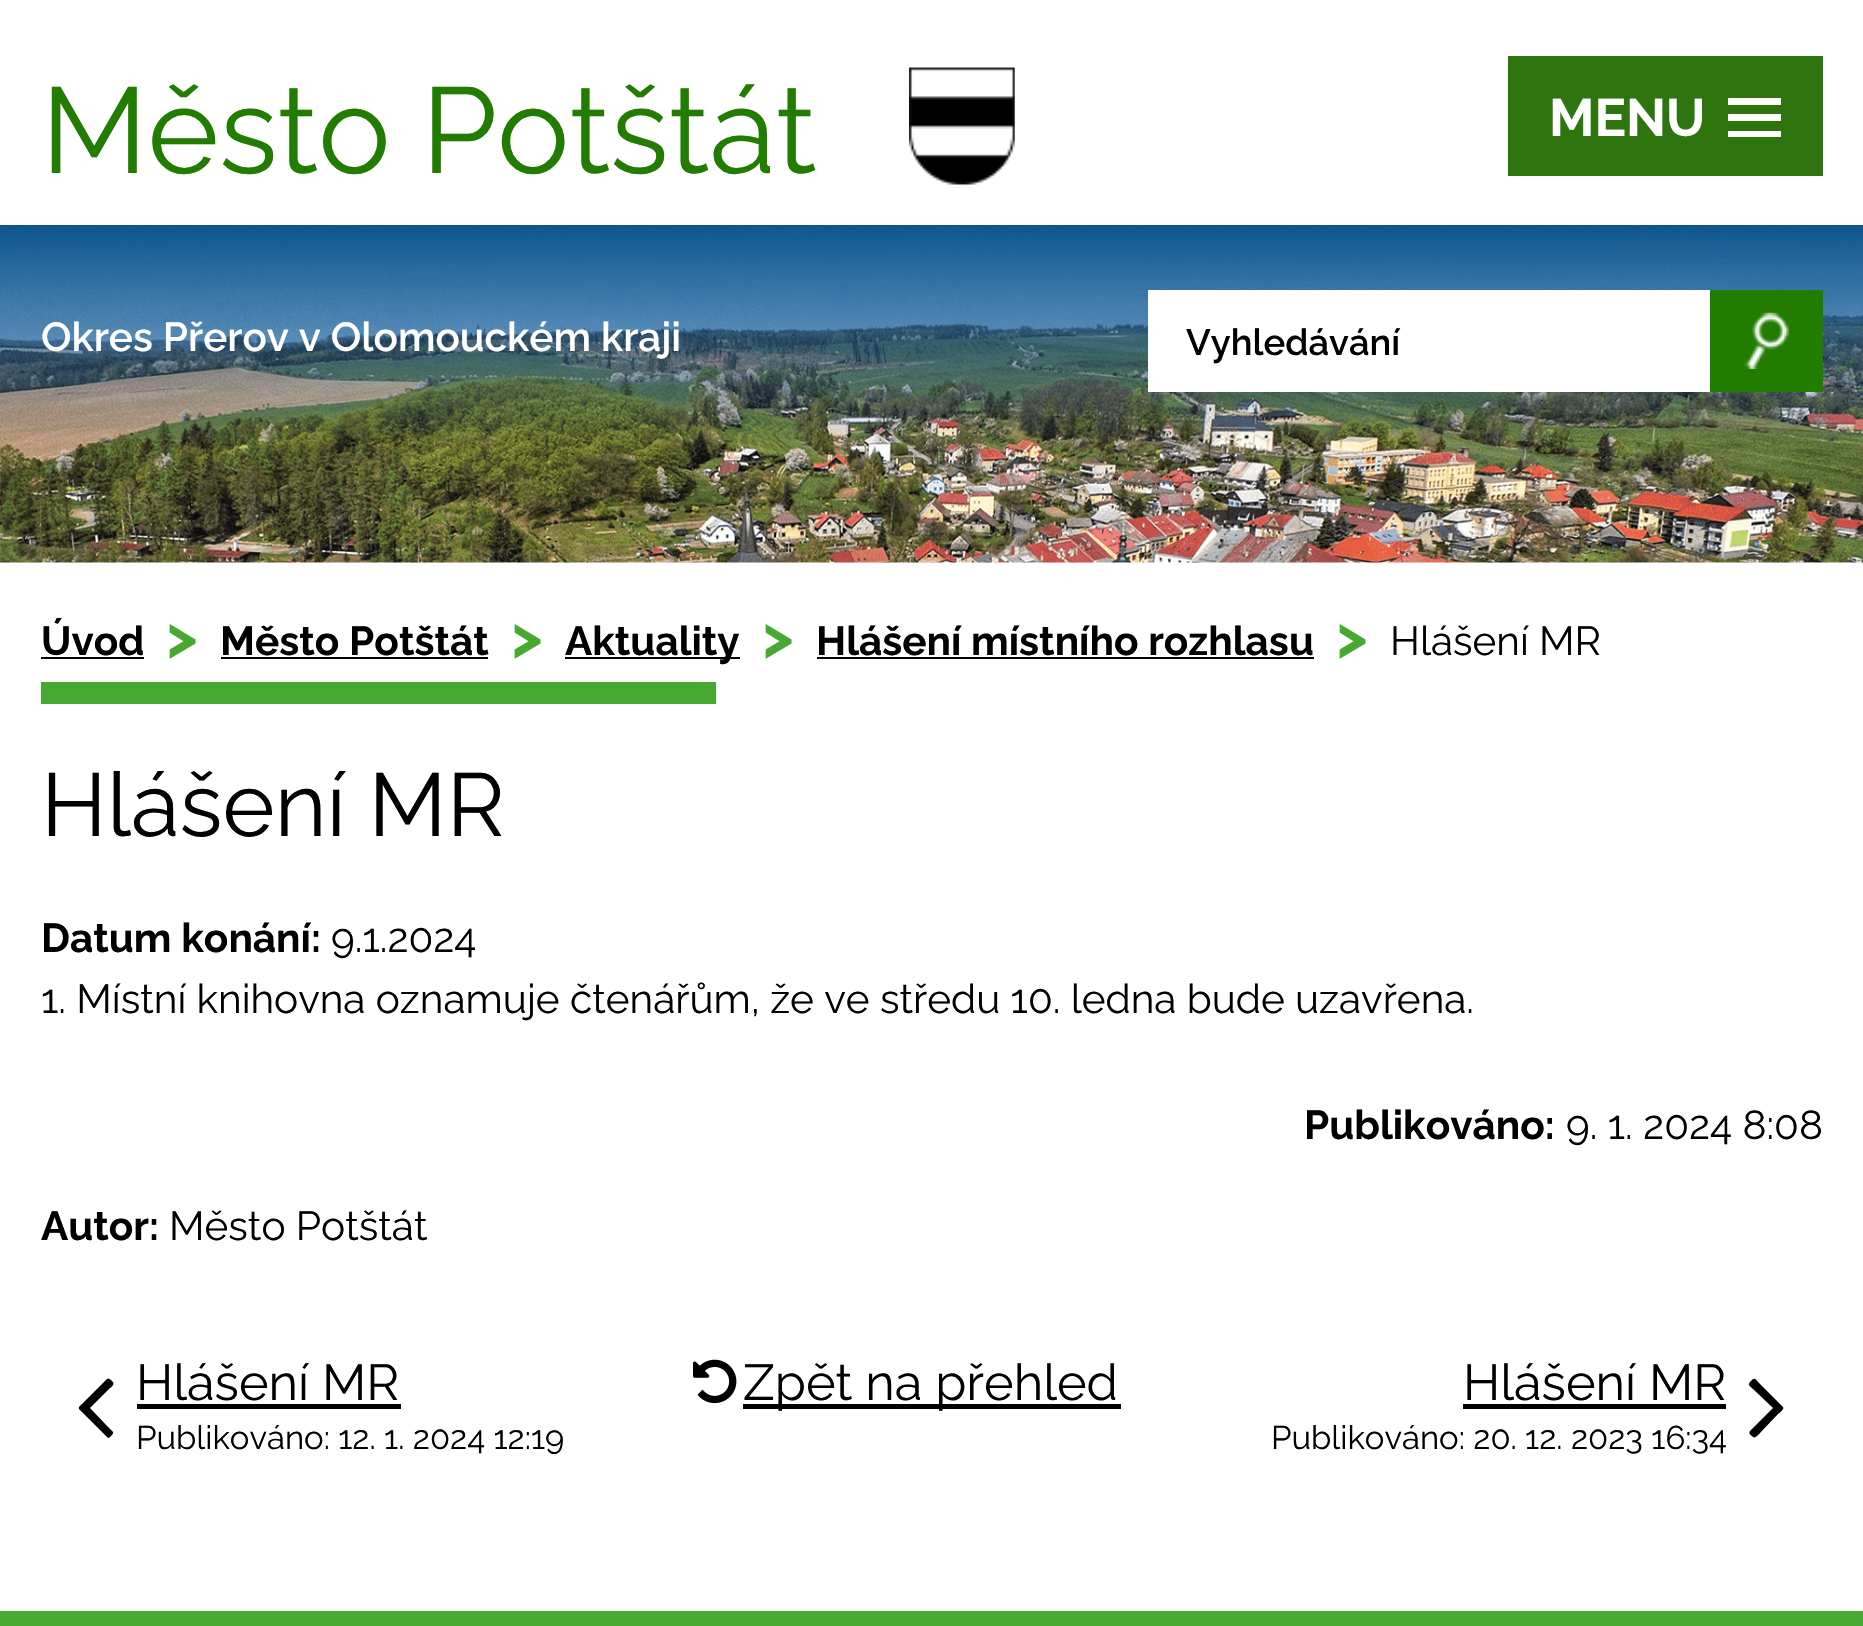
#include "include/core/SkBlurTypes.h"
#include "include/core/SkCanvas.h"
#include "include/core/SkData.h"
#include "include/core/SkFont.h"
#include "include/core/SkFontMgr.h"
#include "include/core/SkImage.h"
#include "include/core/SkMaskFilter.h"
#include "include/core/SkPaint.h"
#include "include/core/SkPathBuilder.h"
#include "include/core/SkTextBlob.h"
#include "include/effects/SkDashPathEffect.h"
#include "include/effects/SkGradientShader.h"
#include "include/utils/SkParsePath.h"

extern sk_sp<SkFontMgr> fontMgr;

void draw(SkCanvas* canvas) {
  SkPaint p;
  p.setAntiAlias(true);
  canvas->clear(SK_ColorWHITE);
  canvas->drawImageRect(SkImages::DeferredFromEncodedData(SkData::MakeFromFileName("images/1.png")), SkRect::MakeLTRB(909, 67, 1015, 185), SkSamplingOptions());
  canvas->drawImageRect(SkImages::DeferredFromEncodedData(SkData::MakeFromFileName("images/2.png")), SkRect::MakeLTRB(0, 225, 1863, 563), SkSamplingOptions());
  p.setColor(SK_ColorWHITE);
  canvas->drawRect(SkRect::MakeLTRB(1148, 290, 1710, 392), p);
  p.setColor(SkColorSetRGB(33, 124, 0));
  canvas->drawRect(SkRect::MakeLTRB(1710, 290, 1823, 392), p);
  canvas->drawImageRect(SkImages::DeferredFromEncodedData(SkData::MakeFromFileName("images/3.png")), SkRect::MakeLTRB(1744, 312, 1789, 369), SkSamplingOptions());
  p.setColor(SkColorSetRGB(46, 117, 16));
  canvas->drawRect(SkRect::MakeLTRB(1508, 56, 1823, 176), p);
  p.setColor(SK_ColorWHITE);
  canvas->drawPath(SkPathBuilder().moveTo(1728, 137).lineTo(1728, 131).lineTo(1781, 131).lineTo(1781, 137).close().moveTo(1728, 98).lineTo(1781, 98).lineTo(1781, 105).lineTo(1728, 105).close().moveTo(1728, 121).lineTo(1728, 114).lineTo(1781, 114).lineTo(1781, 121).close().detach(), p);
  p.setColor(SK_ColorBLACK);
  canvas->drawRect(SkRect::MakeLTRB(41, 657, 144, 659), p);
  canvas->drawRect(SkRect::MakeLTRB(221, 657, 488, 659), p);
  canvas->drawRect(SkRect::MakeLTRB(565, 657, 740, 659), p);
  canvas->drawRect(SkRect::MakeLTRB(817, 657, 1314, 659), p);
  p.setColor(SkColorSetRGB(71, 169, 49));
  canvas->drawRect(SkRect::MakeLTRB(41, 682, 716, 704), p);
  p.setColor(SK_ColorBLACK);
  canvas->drawPath(SkPathBuilder().moveTo(113, 1382).cubicTo(115, 1385, 110, 1388, 109, 1389).lineTo(90, 1408).lineTo(109, 1428).cubicTo(113, 1432, 115, 1432, 111, 1436).cubicTo(110, 1437, 109, 1439, 107, 1437).lineTo(84, 1414).cubicTo(77, 1407, 77, 1409, 84, 1402).lineTo(107, 1379).cubicTo(109, 1377, 112, 1381, 113, 1382).close().detach(), p);
  canvas->drawRect(SkRect::MakeLTRB(137, 1404, 401, 1409), p);
  canvas->drawImageRect(SkImages::DeferredFromEncodedData(SkData::MakeFromFileName("images/4.png")), SkRect::MakeLTRB(693, 1359, 737, 1404), SkSamplingOptions());
  canvas->drawRect(SkRect::MakeLTRB(743, 1404, 1121, 1409), p);
  canvas->drawRect(SkRect::MakeLTRB(1463, 1404, 1726, 1409), p);
  canvas->drawPath(SkPathBuilder().moveTo(1783, 1407).cubicTo(1785, 1409, 1778, 1414, 1778, 1414).lineTo(1760, 1433).cubicTo(1760, 1433, 1755, 1439, 1753, 1437).cubicTo(1752, 1436, 1748, 1434, 1750, 1431).lineTo(1773, 1408).lineTo(1753, 1389).cubicTo(1749, 1385, 1747, 1385, 1751, 1381).cubicTo(1755, 1377, 1755, 1379, 1760, 1384).close().detach(), p);
  p.setColor(SkColorSetRGB(71, 169, 49));
  canvas->drawRect(SkRect::MakeLTRB(0, 1611, 1863, 1626), p);
  SkFont font1(fontMgr->matchFamilyStyle("Raleway", SkFontStyle::Normal()), 121.5f);
  font1.setSubpixel(true);
  p.setColor(SkColorSetRGB(33, 124, 0));
  canvas->drawString("Město Potštát", 41, 173, font1, p);
  SkFont font2(fontMgr->matchFamilyStyle("Raleway", SkFontStyle(600, SkFontStyle::kNormal_Width, SkFontStyle::kUpright_Slant)), 40.5f);
  font2.setSubpixel(true);
  p.setColor(SK_ColorWHITE);
  canvas->drawString("Okres Přerov v Olomouckém kraji", 41, 351, font2, p);
  SkFont font3(fontMgr->matchFamilyStyle("Raleway", SkFontStyle(600, SkFontStyle::kNormal_Width, SkFontStyle::kUpright_Slant)), 36.5f);
  font3.setSubpixel(true);
  p.setColor(SK_ColorBLACK);
  canvas->drawString("Vyhledávání", 1186, 355, font3, p);
  SkFont font4(fontMgr->matchFamilyStyle("Raleway", SkFontStyle::Bold()), 52.5f);
  font4.setSubpixel(true);
  p.setColor(SK_ColorWHITE);
  canvas->drawString("MENU", 1549, 136, font4, p);
  SkFont font5(fontMgr->matchFamilyStyle("Raleway", SkFontStyle::Bold()), 40.5f);
  font5.setSubpixel(true);
  p.setColor(SK_ColorBLACK);
  canvas->drawString("Úvod", 41, 655, font5, p);
  SkFont font6(fontMgr->matchFamilyStyle("Raleway", SkFontStyle::Bold()), 61);
  font6.setSubpixel(true);
  p.setColor(SkColorSetRGB(71, 169, 49));
  canvas->drawString(">", 166, 657, font6, p);
  p.setColor(SK_ColorBLACK);
  canvas->drawString("Město Potštát", 220, 655, font5, p);
  p.setColor(SkColorSetRGB(71, 169, 49));
  canvas->drawString(">", 511, 657, font6, p);
  p.setColor(SK_ColorBLACK);
  canvas->drawString("Aktuality", 565, 655, font5, p);
  p.setColor(SkColorSetRGB(71, 169, 49));
  canvas->drawString(">", 762, 657, font6, p);
  p.setColor(SK_ColorBLACK);
  canvas->drawString("Hlášení místního rozhlasu", 816, 655, font5, p);
  p.setColor(SkColorSetRGB(71, 169, 49));
  canvas->drawString(">", 1336, 657, font6, p);
  SkFont font7(fontMgr->matchFamilyStyle("Raleway", SkFontStyle::Normal()), 40.5f);
  font7.setSubpixel(true);
  p.setColor(SK_ColorBLACK);
  canvas->drawString("Hlášení MR", 1390, 655, font7, p);
  SkFont font8(fontMgr->matchFamilyStyle("Raleway", SkFontStyle::Normal()), 89);
  font8.setSubpixel(true);
  canvas->drawString("Hlášení MR", 41, 836, font8, p);
  canvas->drawString("Datum konání:", 41, 952, font5, p);
  canvas->drawString("9.1.2024", 331, 952, font7, p);
  canvas->drawString("1. Místní knihovna oznamuje čtenářům, že ve středu 10. ledna bude uzavřena.", 41, 1013, font7, p);
  canvas->drawString("Publikováno:", 1304, 1139, font5, p);
  canvas->drawString("9. 1. 2024 8:08", 1566, 1139, font7, p);
  canvas->drawString("Autor:", 41, 1240, font5, p);
  canvas->drawString("Město Potštát", 169, 1240, font7, p);
  SkFont font9(fontMgr->matchFamilyStyle("Raleway", SkFontStyle::Normal()), 50.5f);
  font9.setSubpixel(true);
  canvas->drawString("Hlášení MR", 136, 1400, font9, p);
  SkFont font10(fontMgr->matchFamilyStyle("Raleway", SkFontStyle::Normal()), 32.9f);
  font10.setSubpixel(true);
  canvas->drawString("Publikováno: 12. 1. 2024 12:19", 136, 1449, font10, p);
  canvas->drawString("Zpět na přehled", 743, 1400, font9, p);
  canvas->drawString("Hlášení MR", 1463, 1400, font9, p);
  canvas->drawString("Publikováno: 20. 12. 2023 16:34", 1271, 1449, font10, p);
}
